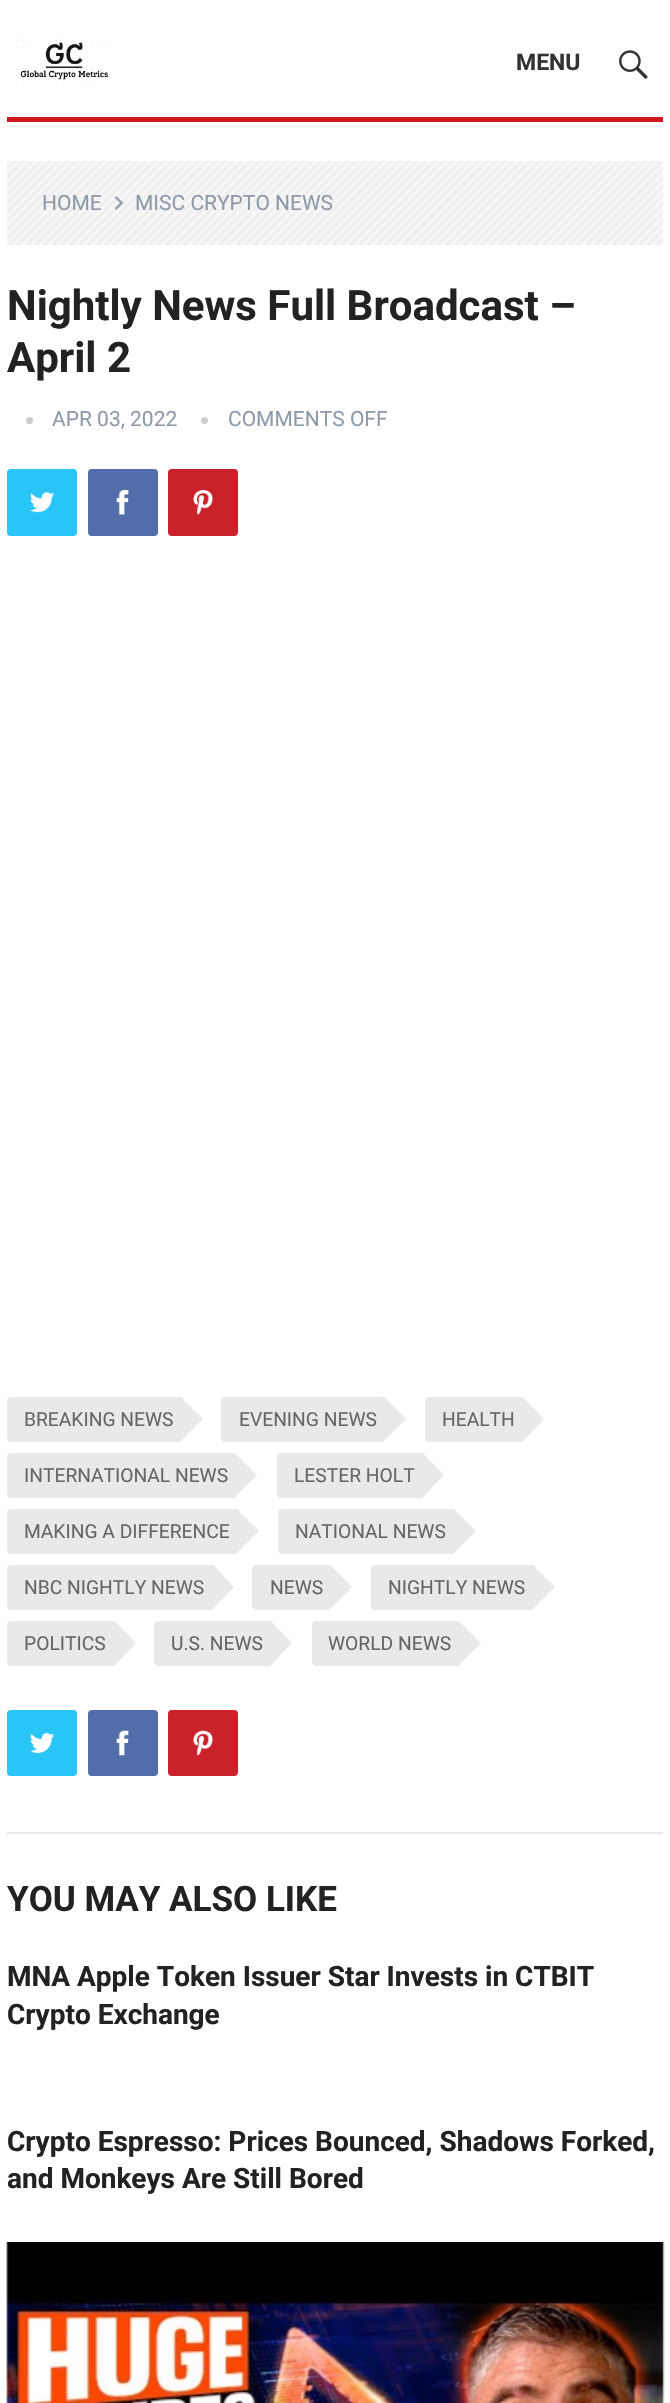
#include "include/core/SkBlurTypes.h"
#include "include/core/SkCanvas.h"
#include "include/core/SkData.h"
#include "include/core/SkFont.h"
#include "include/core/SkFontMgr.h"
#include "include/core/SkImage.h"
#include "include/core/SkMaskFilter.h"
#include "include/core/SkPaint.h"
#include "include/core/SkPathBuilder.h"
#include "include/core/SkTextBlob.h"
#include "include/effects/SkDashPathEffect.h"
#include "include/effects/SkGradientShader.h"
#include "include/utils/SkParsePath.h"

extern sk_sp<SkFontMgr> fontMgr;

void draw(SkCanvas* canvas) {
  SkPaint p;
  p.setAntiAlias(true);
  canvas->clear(SK_ColorWHITE);
  p.setColor(SkColorSetRGB(206, 24, 30));
  canvas->drawRect(SkRect::MakeLTRB(7, 117, 663, 122), p);
  canvas->drawImageRect(SkImages::DeferredFromEncodedData(SkData::MakeFromFileName("images/1.png")), SkRect::MakeLTRB(16, 28, 116, 88), SkSamplingOptions());
  canvas->drawImageRect(SkImages::DeferredFromEncodedData(SkData::MakeFromFileName("images/2.png")), SkRect::MakeLTRB(619, 50, 648, 80), SkSamplingOptions());
  canvas->drawImageRect(SkImages::DeferredFromEncodedData(SkData::MakeFromFileName("images/3.png")), SkRect::MakeLTRB(7, 161, 663, 245), SkSamplingOptions());
  canvas->drawImageRect(SkImages::DeferredFromEncodedData(SkData::MakeFromFileName("images/4.png")), SkRect::MakeLTRB(114, 196, 124, 210), SkSamplingOptions());
  p.setColor(SkColorSetRGB(204, 204, 204));
  canvas->drawCircle(29.5f, 420.5f, 3.5f, p);
  canvas->drawCircle(204.5f, 420.5f, 3.5f, p);
  p.setColor(SkColorSetRGB(41, 197, 246));
  canvas->drawRoundRect(SkRect::MakeLTRB(7, 469, 77, 536), 4, 4, p);
  canvas->drawImageRect(SkImages::DeferredFromEncodedData(SkData::MakeFromFileName("images/5.png")), SkRect::MakeLTRB(29, 492, 55, 513), SkSamplingOptions());
  p.setColor(SkColorSetRGB(81, 110, 171));
  canvas->drawRoundRect(SkRect::MakeLTRB(88, 469, 158, 536), 4, 4, p);
  canvas->drawImageRect(SkImages::DeferredFromEncodedData(SkData::MakeFromFileName("images/6.png")), SkRect::MakeLTRB(116, 490, 129, 515), SkSamplingOptions());
  p.setColor(SkColorSetRGB(202, 33, 42));
  canvas->drawRoundRect(SkRect::MakeLTRB(168, 469, 238, 536), 4, 4, p);
  canvas->drawImageRect(SkImages::DeferredFromEncodedData(SkData::MakeFromFileName("images/7.png")), SkRect::MakeLTRB(193, 490, 213, 515), SkSamplingOptions());
  p.setColor(SkColorSetRGB(233, 233, 233));
  canvas->drawPath(SkPathBuilder().moveTo(11, 1397).lineTo(180, 1397).lineTo(180, 1442).lineTo(11, 1442).cubicTo(9, 1442, 7, 1440, 7, 1438).lineTo(7, 1401).cubicTo(7, 1399, 9, 1397, 11, 1397).close().detach(), p);
  canvas->drawPath(SkPathBuilder().moveTo(180, 1442).lineTo(180, 1396).lineTo(203, 1419).close().detach(), p);
  canvas->drawPath(SkPathBuilder().moveTo(225, 1397).lineTo(383, 1397).lineTo(383, 1442).lineTo(225, 1442).cubicTo(223, 1442, 221, 1440, 221, 1438).lineTo(221, 1401).cubicTo(221, 1399, 223, 1397, 225, 1397).close().detach(), p);
  canvas->drawPath(SkPathBuilder().moveTo(383, 1442).lineTo(383, 1396).lineTo(406, 1419).close().detach(), p);
  canvas->drawPath(SkPathBuilder().moveTo(429, 1397).lineTo(522, 1397).lineTo(522, 1442).lineTo(429, 1442).cubicTo(427, 1442, 425, 1440, 425, 1438).lineTo(425, 1401).cubicTo(425, 1399, 427, 1397, 429, 1397).close().detach(), p);
  canvas->drawPath(SkPathBuilder().moveTo(522, 1442).lineTo(522, 1396).lineTo(544, 1419).close().detach(), p);
  canvas->drawPath(SkPathBuilder().moveTo(11, 1453).lineTo(235, 1453).lineTo(235, 1498).lineTo(11, 1498).cubicTo(9, 1498, 7, 1496, 7, 1494).lineTo(7, 1457).cubicTo(7, 1455, 9, 1453, 11, 1453).close().detach(), p);
  canvas->drawPath(SkPathBuilder().moveTo(234, 1498).lineTo(234, 1452).lineTo(257, 1475).close().detach(), p);
  canvas->drawPath(SkPathBuilder().moveTo(281, 1453).lineTo(422, 1453).lineTo(422, 1498).lineTo(281, 1498).cubicTo(279, 1498, 277, 1496, 277, 1494).lineTo(277, 1457).cubicTo(277, 1455, 279, 1453, 281, 1453).close().detach(), p);
  canvas->drawPath(SkPathBuilder().moveTo(422, 1498).lineTo(422, 1452).lineTo(444, 1475).close().detach(), p);
  canvas->drawPath(SkPathBuilder().moveTo(11, 1509).lineTo(236, 1509).lineTo(236, 1554).lineTo(11, 1554).cubicTo(9, 1554, 7, 1552, 7, 1550).lineTo(7, 1513).cubicTo(7, 1511, 9, 1509, 11, 1509).close().detach(), p);
  canvas->drawPath(SkPathBuilder().moveTo(236, 1554).lineTo(236, 1508).lineTo(259, 1531).close().detach(), p);
  canvas->drawPath(SkPathBuilder().moveTo(282, 1509).lineTo(453, 1509).lineTo(453, 1554).lineTo(282, 1554).cubicTo(280, 1554, 278, 1552, 278, 1550).lineTo(278, 1513).cubicTo(278, 1511, 280, 1509, 282, 1509).close().detach(), p);
  canvas->drawPath(SkPathBuilder().moveTo(453, 1554).lineTo(453, 1508).lineTo(476, 1531).close().detach(), p);
  canvas->drawPath(SkPathBuilder().moveTo(11, 1565).lineTo(212, 1565).lineTo(212, 1610).lineTo(11, 1610).cubicTo(9, 1610, 7, 1608, 7, 1606).lineTo(7, 1569).cubicTo(7, 1567, 9, 1565, 11, 1565).close().detach(), p);
  canvas->drawPath(SkPathBuilder().moveTo(212, 1610).lineTo(212, 1564).lineTo(234, 1587).close().detach(), p);
  canvas->drawPath(SkPathBuilder().moveTo(256, 1565).lineTo(329, 1565).lineTo(329, 1610).lineTo(256, 1610).cubicTo(254, 1610, 252, 1608, 252, 1606).lineTo(252, 1569).cubicTo(252, 1567, 254, 1565, 256, 1565).close().detach(), p);
  canvas->drawPath(SkPathBuilder().moveTo(329, 1610).lineTo(329, 1564).lineTo(352, 1587).close().detach(), p);
  canvas->drawPath(SkPathBuilder().moveTo(375, 1565).lineTo(532, 1565).lineTo(532, 1610).lineTo(375, 1610).cubicTo(373, 1610, 371, 1608, 371, 1606).lineTo(371, 1569).cubicTo(371, 1567, 373, 1565, 375, 1565).close().detach(), p);
  canvas->drawPath(SkPathBuilder().moveTo(532, 1610).lineTo(532, 1564).lineTo(555, 1587).close().detach(), p);
  canvas->drawPath(SkPathBuilder().moveTo(11, 1621).lineTo(114, 1621).lineTo(114, 1666).lineTo(11, 1666).cubicTo(9, 1666, 7, 1664, 7, 1662).lineTo(7, 1625).cubicTo(7, 1623, 9, 1621, 11, 1621).close().detach(), p);
  canvas->drawPath(SkPathBuilder().moveTo(114, 1666).lineTo(114, 1620).lineTo(136, 1643).close().detach(), p);
  canvas->drawPath(SkPathBuilder().moveTo(158, 1621).lineTo(270, 1621).lineTo(270, 1666).lineTo(158, 1666).cubicTo(156, 1666, 154, 1664, 154, 1662).lineTo(154, 1625).cubicTo(154, 1623, 156, 1621, 158, 1621).close().detach(), p);
  canvas->drawPath(SkPathBuilder().moveTo(270, 1666).lineTo(270, 1620).lineTo(292, 1643).close().detach(), p);
  canvas->drawPath(SkPathBuilder().moveTo(316, 1621).lineTo(459, 1621).lineTo(459, 1666).lineTo(316, 1666).cubicTo(314, 1666, 312, 1664, 312, 1662).lineTo(312, 1625).cubicTo(312, 1623, 314, 1621, 316, 1621).close().detach(), p);
  canvas->drawPath(SkPathBuilder().moveTo(458, 1666).lineTo(458, 1620).lineTo(481, 1643).close().detach(), p);
  p.setColor(SkColorSetRGB(41, 197, 246));
  canvas->drawRoundRect(SkRect::MakeLTRB(7, 1710, 77, 1776), 4, 4, p);
  canvas->drawImageRect(SkImages::DeferredFromEncodedData(SkData::MakeFromFileName("images/8.png")), SkRect::MakeLTRB(30, 1733, 55, 1753), SkSamplingOptions());
  p.setColor(SkColorSetRGB(81, 110, 171));
  canvas->drawRoundRect(SkRect::MakeLTRB(88, 1710, 158, 1776), 4, 4, p);
  canvas->drawImageRect(SkImages::DeferredFromEncodedData(SkData::MakeFromFileName("images/9.png")), SkRect::MakeLTRB(116, 1730, 129, 1756), SkSamplingOptions());
  p.setColor(SkColorSetRGB(202, 33, 42));
  canvas->drawRoundRect(SkRect::MakeLTRB(168, 1710, 238, 1776), 4, 4, p);
  canvas->drawImageRect(SkImages::DeferredFromEncodedData(SkData::MakeFromFileName("images/10.png")), SkRect::MakeLTRB(193, 1730, 213, 1756), SkSamplingOptions());
  p.setColor(SkColorSetRGB(233, 233, 233));
  canvas->drawRect(SkRect::MakeLTRB(7, 1832, 663, 1834), p);
  canvas->drawImageRect(SkImages::DeferredFromEncodedData(SkData::MakeFromFileName("images/11.png")), SkRect::MakeLTRB(6, 2242, 665, 2403), SkSamplingOptions());
  SkFont font1(fontMgr->matchFamilyStyle("Roboto", SkFontStyle::Bold()), 23);
  font1.setSubpixel(true);
  p.setColor(SkColorSetRGB(51, 51, 51));
  canvas->drawString("MENU", 516, 70, font1, p);
  SkFont font2(fontMgr->matchFamilyStyle("Roboto", SkFontStyle::Normal()), 21);
  font2.setSubpixel(true);
  p.setColor(SkColorSetRGB(142, 153, 169));
  canvas->drawString("HOME", 42, 210, font2, p);
  canvas->drawString("MISC CRYPTO NEWS", 135, 210, font2, p);
  SkFont font3(fontMgr->matchFamilyStyle("Roboto", SkFontStyle::Bold()), 42);
  font3.setSubpixel(true);
  p.setColor(SkColorSetRGB(34, 34, 34));
  canvas->drawString("Nightly News Full Broadcast –", 7, 320, font3, p);
  canvas->drawString("April 2", 7, 372, font3, p);
  p.setColor(SkColorSetRGB(142, 153, 169));
  canvas->drawString("APR 03, 2022", 52, 426, font2, p);
  canvas->drawString("COMMENTS OFF", 228, 426, font2, p);
  SkFont font4(fontMgr->matchFamilyStyle("Roboto", SkFontStyle::Normal()), 19.25f);
  font4.setSubpixel(true);
  p.setColor(SkColorSetRGB(102, 102, 102));
  canvas->drawString("BREAKING NEWS", 24, 1426, font4, p);
  canvas->drawString("EVENING NEWS", 239, 1426, font4, p);
  canvas->drawString("HEALTH", 442, 1426, font4, p);
  canvas->drawString("INTERNATIONAL NEWS", 24, 1482, font4, p);
  canvas->drawString("LESTER HOLT", 294, 1482, font4, p);
  canvas->drawString("MAKING A DIFFERENCE", 24, 1538, font4, p);
  canvas->drawString("NATIONAL NEWS", 295, 1538, font4, p);
  canvas->drawString("NBC NIGHTLY NEWS", 24, 1594, font4, p);
  canvas->drawString("NEWS", 270, 1594, font4, p);
  canvas->drawString("NIGHTLY NEWS", 388, 1594, font4, p);
  canvas->drawString("POLITICS", 24, 1650, font4, p);
  canvas->drawString("U.S. NEWS", 171, 1650, font4, p);
  canvas->drawString("WORLD NEWS", 328, 1650, font4, p);
  SkFont font5(fontMgr->matchFamilyStyle("Roboto", SkFontStyle::Bold()), 35);
  font5.setSubpixel(true);
  p.setColor(SkColorSetRGB(34, 34, 34));
  canvas->drawString("YOU MAY ALSO LIKE", 7, 1911, font5, p);
  SkFont font6(fontMgr->matchFamilyStyle("Roboto", SkFontStyle::Bold()), 28);
  font6.setSubpixel(true);
  canvas->drawString("MNA Apple Token Issuer Star Invests in CTBIT", 7, 1986, font6, p);
  canvas->drawString("Crypto Exchange", 7, 2024, font6, p);
  canvas->drawString("Crypto Espresso: Prices Bounced, Shadows Forked,", 7, 2151, font6, p);
  canvas->drawString("and Monkeys Are Still Bored", 7, 2188, font6, p);
}
